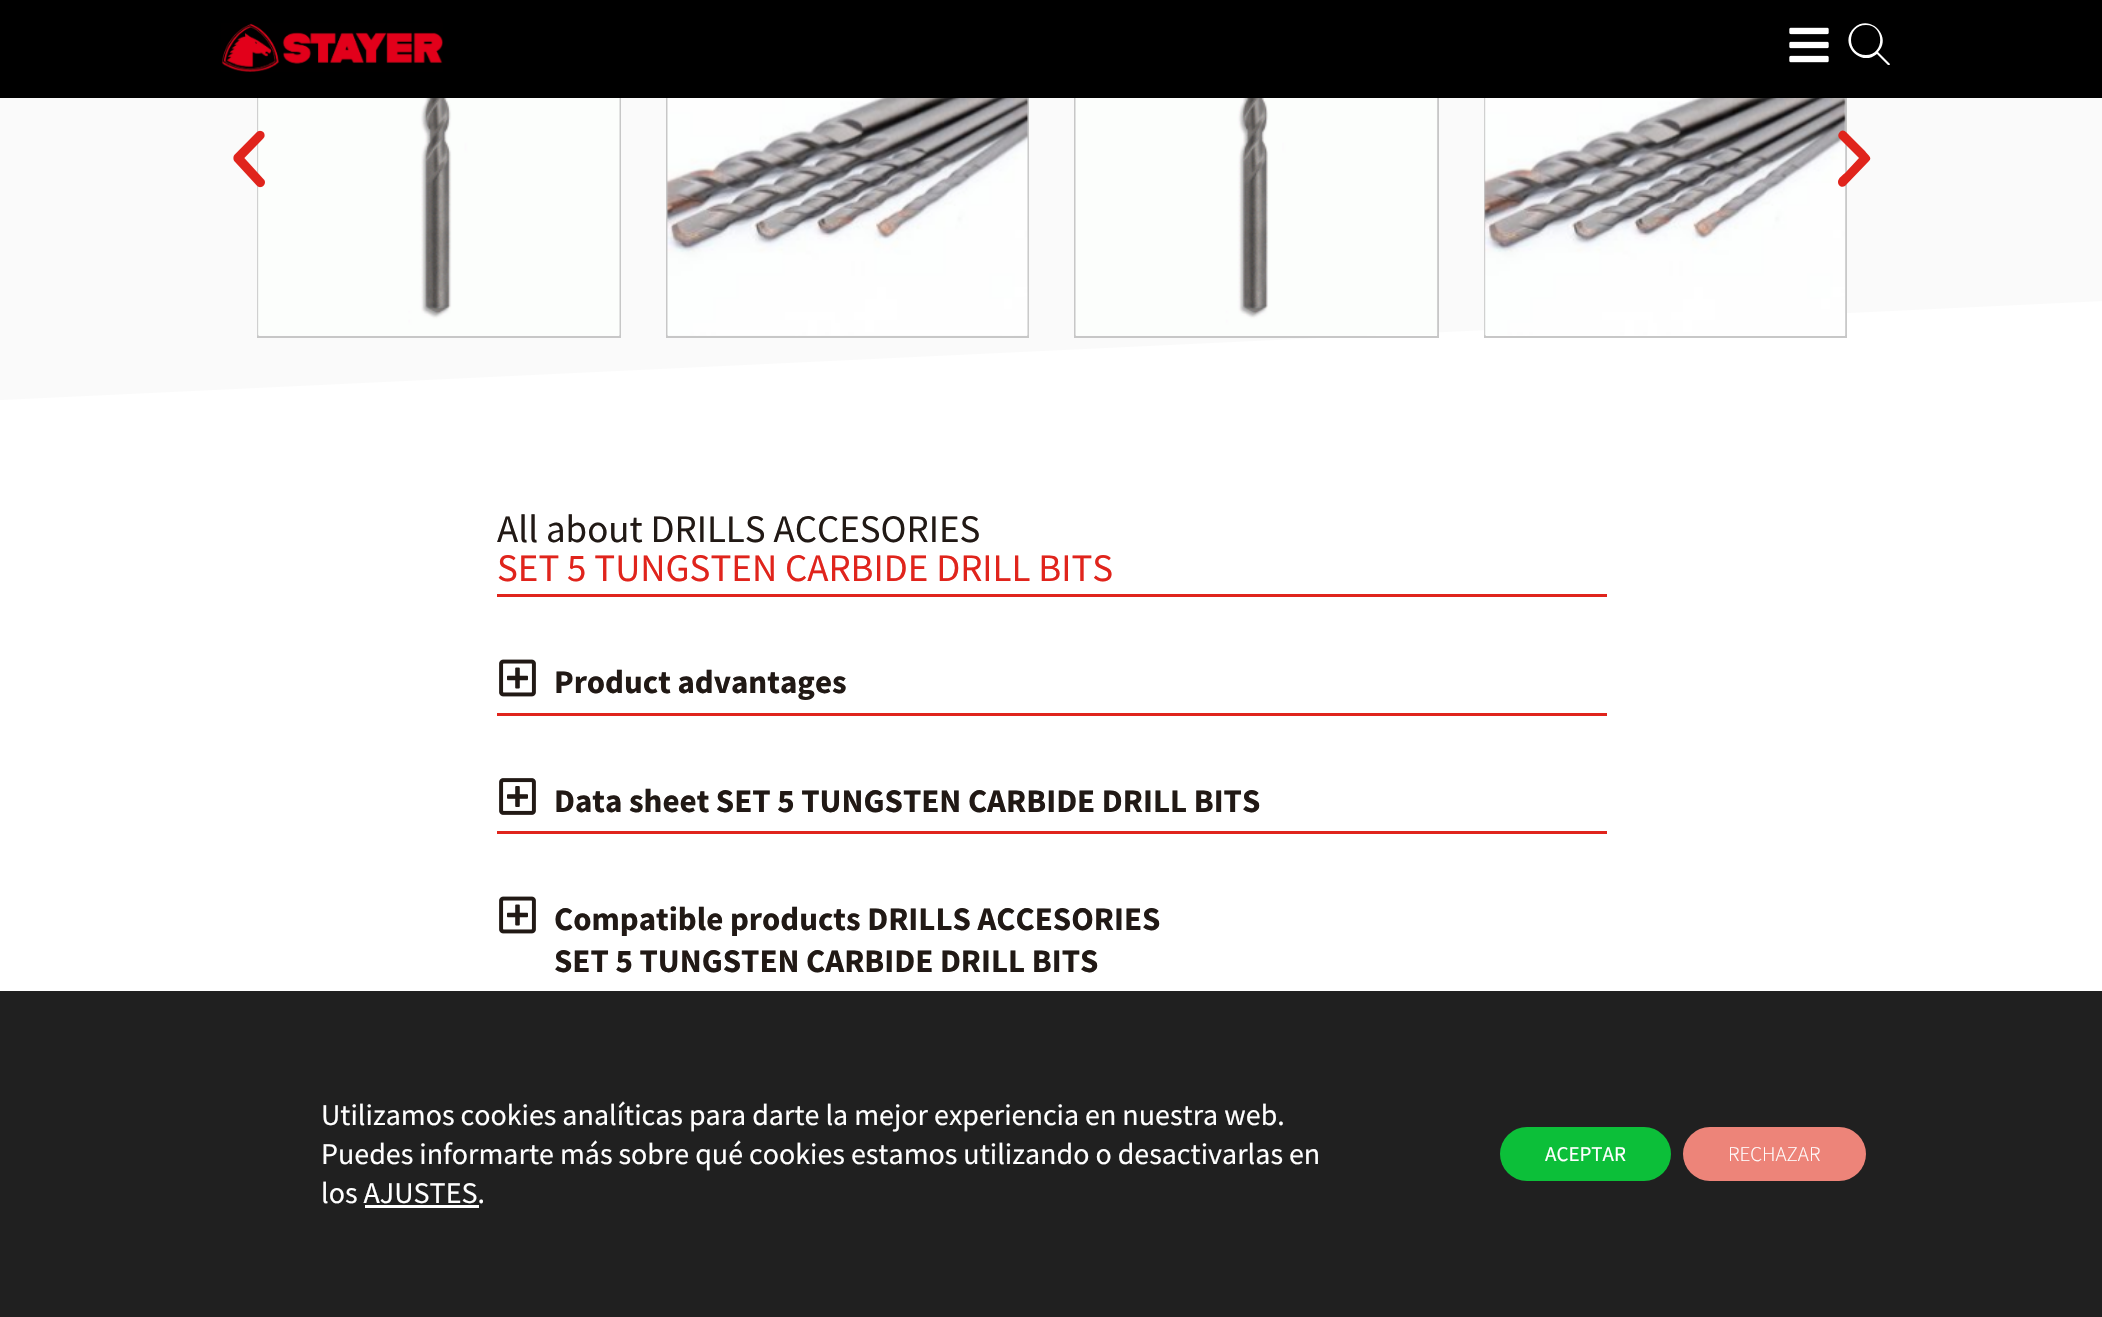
#include "include/core/SkBlurTypes.h"
#include "include/core/SkCanvas.h"
#include "include/core/SkData.h"
#include "include/core/SkFont.h"
#include "include/core/SkFontMgr.h"
#include "include/core/SkImage.h"
#include "include/core/SkMaskFilter.h"
#include "include/core/SkPaint.h"
#include "include/core/SkPathBuilder.h"
#include "include/core/SkTextBlob.h"
#include "include/effects/SkDashPathEffect.h"
#include "include/effects/SkGradientShader.h"
#include "include/utils/SkParsePath.h"

extern sk_sp<SkFontMgr> fontMgr;

void draw(SkCanvas* canvas) {
  SkPaint p;
  p.setAntiAlias(true);
  canvas->clear(SK_ColorWHITE);
  p.setColor(SkColorSetRGB(250, 250, 250));
  canvas->drawRect(SkRect::MakeLTRB(0, 98, 2102, 400), p);
  canvas->save();
  canvas->clipRect(SkRect::MakeLTRB(0, 300, 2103, 405));
  p.setColor(SK_ColorWHITE);
  canvas->drawPath(SkPathBuilder().moveTo(-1, 400).lineTo(-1, 406).lineTo(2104, 406).lineTo(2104, 301).close().detach(), p);
  canvas->restore();
  p.setStyle(SkPaint::kStroke_Style);
  p.setStrokeWidth(2);
  p.setColor(SkColorSetRGB(199, 199, 199));
  canvas->drawRect(SkRect::MakeLTRB(258, -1, 620, 337), p);
  canvas->drawRect(SkRect::MakeLTRB(667, -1, 1028, 337), p);
  canvas->drawRect(SkRect::MakeLTRB(1075, -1, 1438, 337), p);
  canvas->drawRect(SkRect::MakeLTRB(1485, -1, 1846, 337), p);
  p.setStyle(SkPaint::kFill_Style);
  p.setColor(SK_ColorBLACK);
  canvas->drawRect(SkRect::MakeLTRB(0, 0, 2102, 98), p);
  canvas->drawImageRect(SkImages::DeferredFromEncodedData(SkData::MakeFromFileName("images/1.png")), SkRect::MakeLTRB(221, 23, 443, 72), SkSamplingOptions());
  canvas->drawImageRect(SkImages::DeferredFromEncodedData(SkData::MakeFromFileName("images/2.png")), SkRect::MakeLTRB(1789, 27, 1829, 63), SkSamplingOptions());
  p.setColor(SK_ColorWHITE);
  canvas->drawPath(SkPathBuilder().moveTo(1888, 65).lineTo(1877, 54).cubicTo(1860, 68, 1838, 43, 1854, 28).cubicTo(1870, 13, 1893, 37, 1878, 52).lineTo(1890, 64).cubicTo(1890, 65, 1889, 65, 1888, 65).close().moveTo(1866, 25).cubicTo(1846, 25, 1846, 55, 1866, 55).cubicTo(1885, 55, 1885, 25, 1866, 25).close().detach(), p);
  canvas->drawImageRect(SkImages::DeferredFromEncodedData(SkData::MakeFromFileName("images/4.png")), SkRect::MakeLTRB(257, 98, 620, 336), SkSamplingOptions());
  canvas->drawImageRect(SkImages::DeferredFromEncodedData(SkData::MakeFromFileName("images/3.png")), SkRect::MakeLTRB(233, 130, 265, 188), SkSamplingOptions());
  canvas->drawImageRect(SkImages::DeferredFromEncodedData(SkData::MakeFromFileName("images/5.png")), SkRect::MakeLTRB(667, 98, 1029, 336), SkSamplingOptions());
  canvas->drawImageRect(SkImages::DeferredFromEncodedData(SkData::MakeFromFileName("images/6.png")), SkRect::MakeLTRB(1075, 98, 1438, 336), SkSamplingOptions());
  canvas->drawImageRect(SkImages::DeferredFromEncodedData(SkData::MakeFromFileName("images/7.png")), SkRect::MakeLTRB(1484, 98, 1847, 336), SkSamplingOptions());
  p.setColor(SkColorSetRGB(224, 36, 28));
  canvas->drawPath(SkPathBuilder().moveTo(1869, 161).cubicTo(1873, 158, 1867, 154, 1865, 151).lineTo(1850, 136).cubicTo(1847, 133, 1843, 127, 1839, 133).cubicTo(1838, 135, 1838, 136, 1839, 138).lineTo(1859, 158).lineTo(1846, 172).cubicTo(1843, 175, 1838, 178, 1838, 182).cubicTo(1838, 186, 1842, 188, 1845, 186).close().detach(), p);
  canvas->drawRect(SkRect::MakeLTRB(497, 594, 1607, 597), p);
  canvas->drawRect(SkRect::MakeLTRB(497, 713, 1607, 716), p);
  canvas->drawImageRect(SkImages::DeferredFromEncodedData(SkData::MakeFromFileName("images/8.png")), SkRect::MakeLTRB(499, 659, 536, 697), SkSamplingOptions());
  canvas->drawRect(SkRect::MakeLTRB(497, 831, 1607, 834), p);
  canvas->drawImageRect(SkImages::DeferredFromEncodedData(SkData::MakeFromFileName("images/9.png")), SkRect::MakeLTRB(499, 778, 536, 815), SkSamplingOptions());
  canvas->drawImageRect(SkImages::DeferredFromEncodedData(SkData::MakeFromFileName("images/8.png")), SkRect::MakeLTRB(499, 896, 536, 934), SkSamplingOptions());
  p.setColor(SkColorSetRGB(32, 32, 32));
  canvas->drawRect(SkRect::MakeLTRB(0, 991, 2102, 1317), p);
  p.setColor(SK_ColorWHITE);
  canvas->drawRect(SkRect::MakeLTRB(365, 1205, 479, 1208), p);
  p.setColor(SkColorSetRGB(12, 191, 57));
  canvas->drawRoundRect(SkRect::MakeLTRB(1500, 1127, 1671, 1181), 27, 27, p);
  p.setColor(SkColorSetRGB(237, 132, 121));
  canvas->drawRoundRect(SkRect::MakeLTRB(1683, 1127, 1866, 1181), 27, 27, p);
  SkFont font1(fontMgr->matchFamilyStyle("Source Sans Pro", SkFontStyle::Normal()), 39);
  font1.setSubpixel(true);
  p.setColor(SkColorSetRGB(33, 25, 21));
  canvas->drawString("All about DRILLS ACCESORIES", 497, 542, font1, p);
  p.setColor(SkColorSetRGB(224, 36, 28));
  canvas->drawString("SET 5 TUNGSTEN CARBIDE DRILL BITS", 497, 581, font1, p);
  SkFont font2(fontMgr->matchFamilyStyle("Source Sans Pro", SkFontStyle::Bold()), 33);
  font2.setSubpixel(true);
  p.setColor(SkColorSetRGB(33, 25, 21));
  canvas->drawString("Product advantages", 554, 693, font2, p);
  canvas->drawString("Data sheet SET 5 TUNGSTEN CARBIDE DRILL BITS", 554, 812, font2, p);
  canvas->drawString("Compatible products DRILLS ACCESORIES", 554, 930, font2, p);
  canvas->drawString("SET 5 TUNGSTEN CARBIDE DRILL BITS", 554, 972, font2, p);
  SkFont font3(fontMgr->matchFamilyStyle("Source Sans Pro", SkFontStyle::Normal()), 30);
  font3.setSubpixel(true);
  p.setColor(SK_ColorWHITE);
  canvas->drawString("Utilizamos cookies analíticas para darte la mejor experiencia en nuestra web.", 321, 1125, font3, p);
  canvas->drawString("Puedes informarte más sobre qué cookies estamos utilizando o desactivarlas en", 321, 1164, font3, p);
  canvas->drawString("los AJUSTES.", 321, 1203, font3, p);
  SkFont font4(fontMgr->matchFamilyStyle("Source Sans Pro", SkFontStyle::Normal()), 21);
  font4.setSubpixel(true);
  canvas->drawString("ACEPTAR", 1545, 1161, font4, p);
  SkFont font5(fontMgr->matchFamilyStyle("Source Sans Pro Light", SkFontStyle(300, SkFontStyle::kNormal_Width, SkFontStyle::kUpright_Slant)), 21);
  font5.setSubpixel(true);
  canvas->drawString("RECHAZAR", 1728, 1161, font5, p);
}
